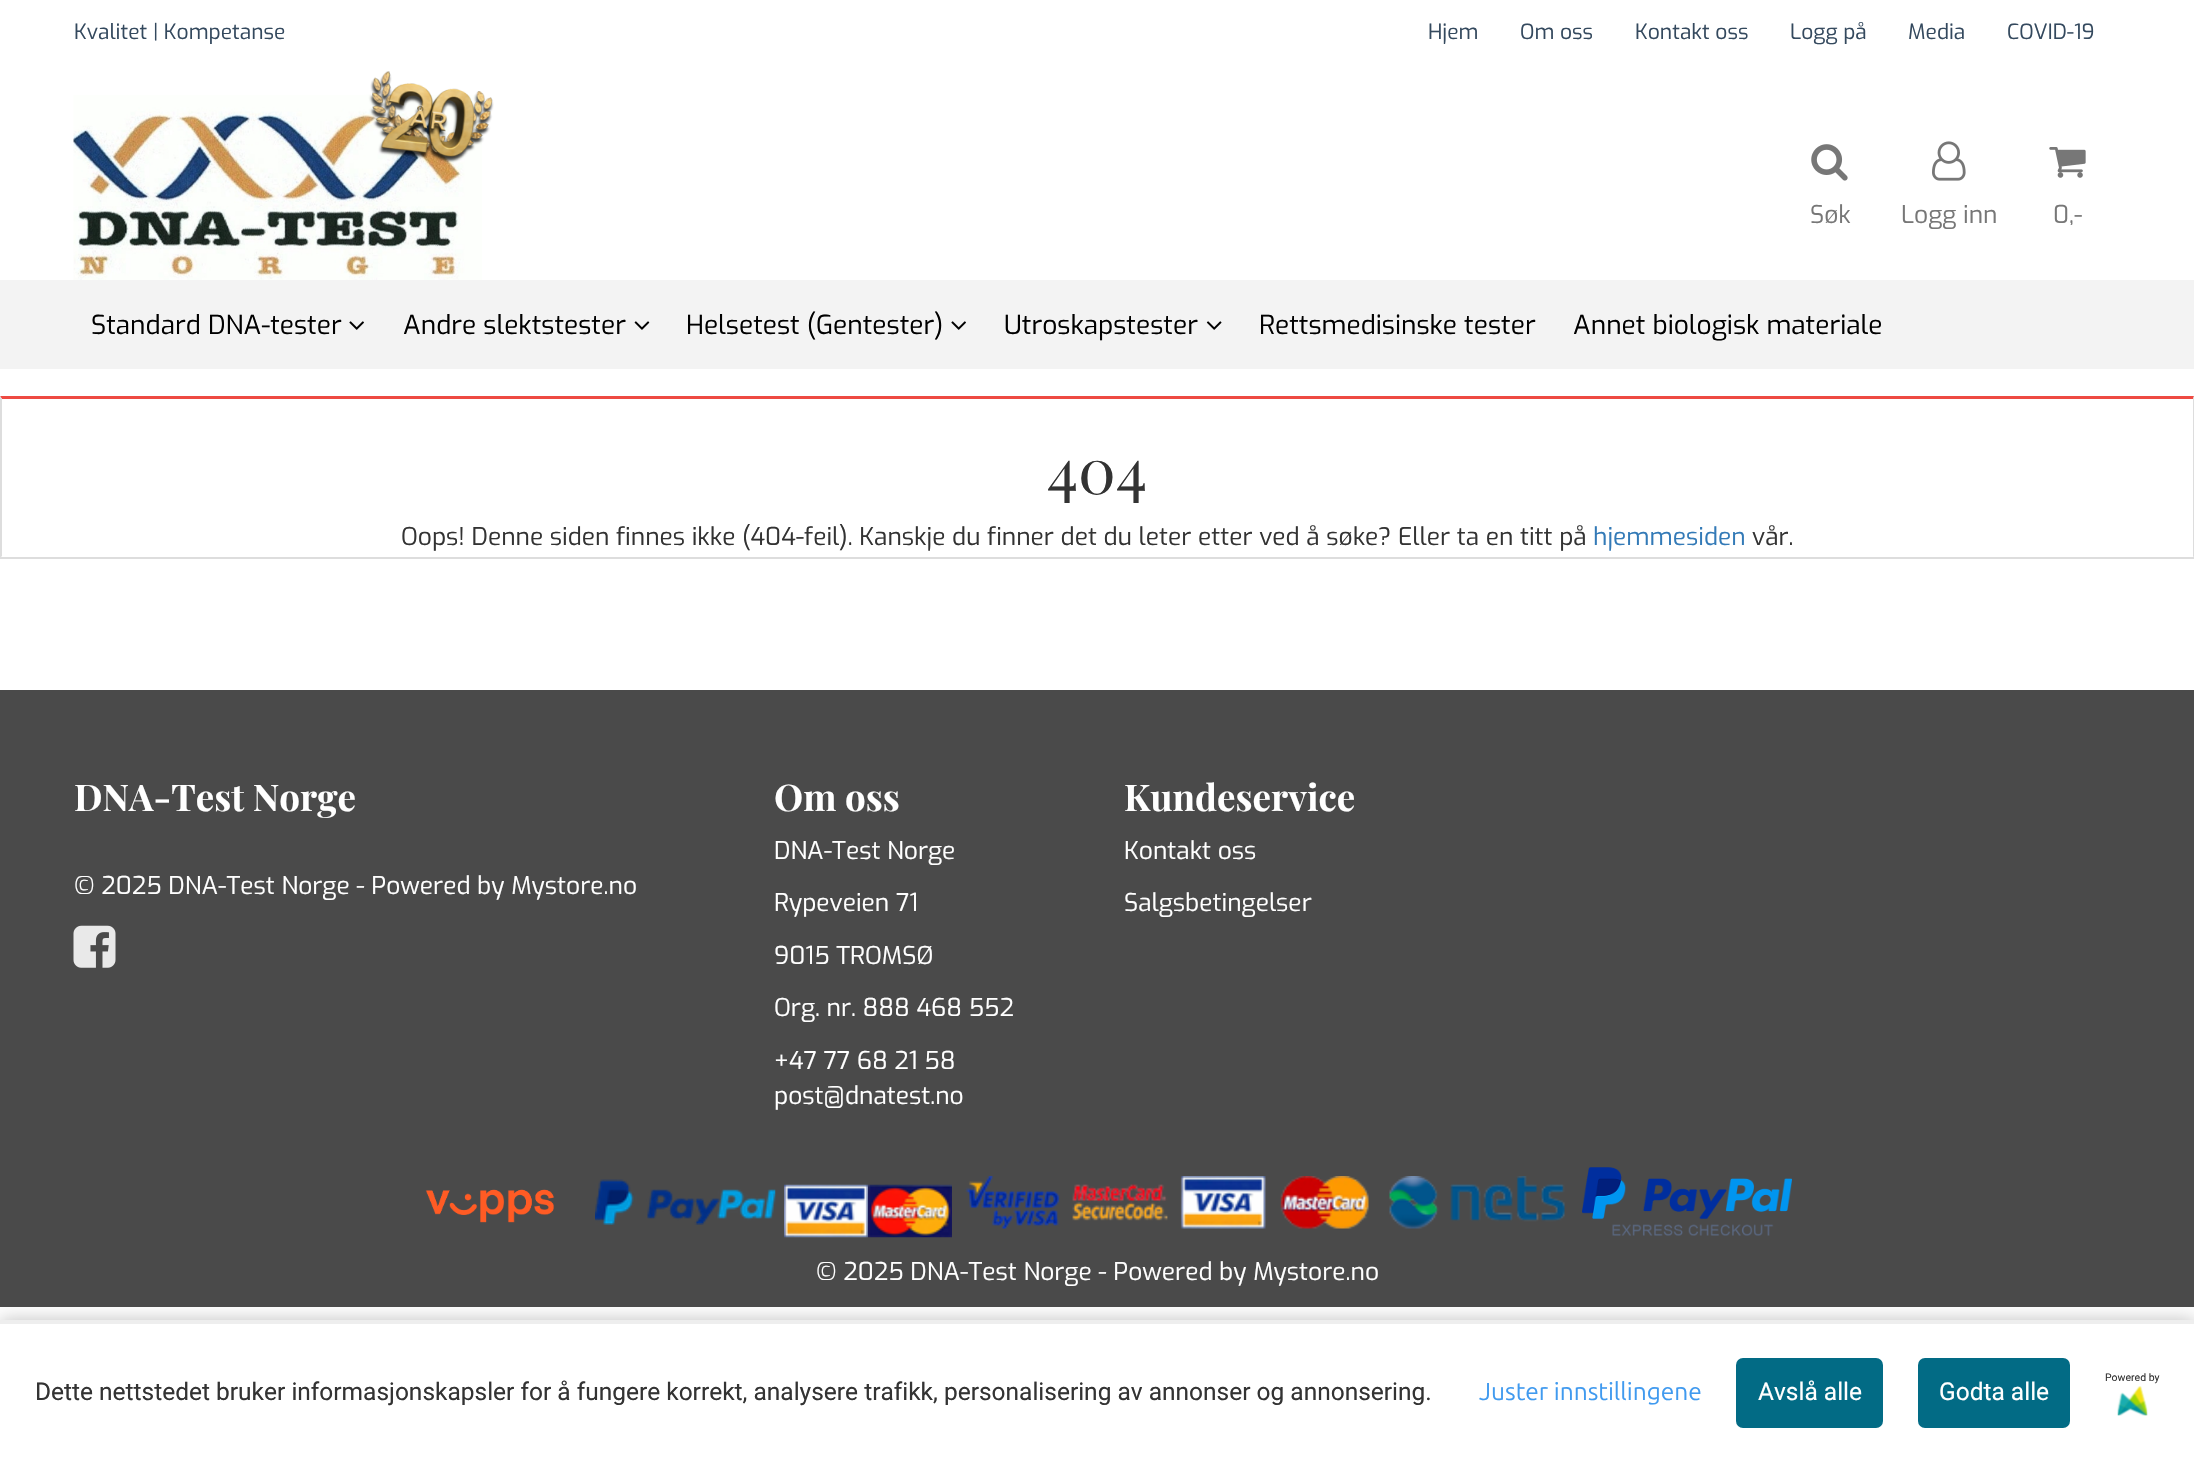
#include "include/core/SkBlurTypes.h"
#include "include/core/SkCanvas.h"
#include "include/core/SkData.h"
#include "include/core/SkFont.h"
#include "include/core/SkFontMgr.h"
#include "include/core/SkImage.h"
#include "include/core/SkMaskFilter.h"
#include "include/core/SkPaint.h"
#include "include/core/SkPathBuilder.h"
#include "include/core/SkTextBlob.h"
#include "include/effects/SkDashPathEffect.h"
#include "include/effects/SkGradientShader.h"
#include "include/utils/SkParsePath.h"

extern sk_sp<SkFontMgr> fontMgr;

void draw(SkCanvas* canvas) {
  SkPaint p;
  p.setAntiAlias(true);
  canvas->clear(SK_ColorWHITE);
  canvas->drawImageRect(SkImages::DeferredFromEncodedData(SkData::MakeFromFileName("images/1.png")), SkRect::MakeLTRB(73, 71, 494, 280), SkSamplingOptions());
  canvas->drawImageRect(SkImages::DeferredFromEncodedData(SkData::MakeFromFileName("images/2.png")), SkRect::MakeLTRB(1811, 144, 1848, 181), SkSamplingOptions());
  canvas->drawImageRect(SkImages::DeferredFromEncodedData(SkData::MakeFromFileName("images/3.png")), SkRect::MakeLTRB(1932, 141, 1966, 181), SkSamplingOptions());
  canvas->drawImageRect(SkImages::DeferredFromEncodedData(SkData::MakeFromFileName("images/4.png")), SkRect::MakeLTRB(2049, 147, 2086, 178), SkSamplingOptions());
  p.setColor(SkColorSetRGB(243, 243, 243));
  canvas->drawRect(SkRect::MakeLTRB(0, 280, 2194, 369), p);
  canvas->drawImageRect(SkImages::DeferredFromEncodedData(SkData::MakeFromFileName("images/5.png")), SkRect::MakeLTRB(349, 321, 364, 330), SkSamplingOptions());
  canvas->drawImageRect(SkImages::DeferredFromEncodedData(SkData::MakeFromFileName("images/6.png")), SkRect::MakeLTRB(634, 321, 650, 330), SkSamplingOptions());
  canvas->drawImageRect(SkImages::DeferredFromEncodedData(SkData::MakeFromFileName("images/5.png")), SkRect::MakeLTRB(951, 321, 966, 330), SkSamplingOptions());
  canvas->drawImageRect(SkImages::DeferredFromEncodedData(SkData::MakeFromFileName("images/7.png")), SkRect::MakeLTRB(1206, 321, 1222, 330), SkSamplingOptions());
  p.setColor(SkColorSetRGB(238, 74, 66));
  canvas->drawPath(SkPathBuilder().moveTo(0, 396).lineTo(2194, 396).lineTo(2193, 399).lineTo(2, 399).close().detach(), p);
  p.setColor(SkColorSetRGB(221, 221, 221));
  canvas->drawPath(SkPathBuilder().moveTo(2194, 396).lineTo(2194, 558).lineTo(2193, 556).lineTo(2193, 399).close().detach(), p);
  canvas->drawRect(SkRect::MakeLTRB(0, 557, 2194, 559), p);
  canvas->drawPath(SkPathBuilder().moveTo(0, 558).lineTo(0, 396).lineTo(2, 399).lineTo(2, 556).close().detach(), p);
  p.setColor(SkColorSetRGB(74, 74, 74));
  canvas->drawRect(SkRect::MakeLTRB(0, 690, 2194, 1307), p);
  canvas->drawImageRect(SkImages::DeferredFromEncodedData(SkData::MakeFromFileName("images/8.png")), SkRect::MakeLTRB(73, 925, 116, 968), SkSamplingOptions());
  canvas->drawImageRect(SkImages::DeferredFromEncodedData(SkData::MakeFromFileName("images/9.png")), SkRect::MakeLTRB(425, 1189, 555, 1223), SkSamplingOptions());
  canvas->drawImageRect(SkImages::DeferredFromEncodedData(SkData::MakeFromFileName("images/10.png")), SkRect::MakeLTRB(595, 1179, 776, 1225), SkSamplingOptions());
  canvas->drawImageRect(SkImages::DeferredFromEncodedData(SkData::MakeFromFileName("images/11.png")), SkRect::MakeLTRB(784, 1184, 868, 1238), SkSamplingOptions());
  canvas->drawImageRect(SkImages::DeferredFromEncodedData(SkData::MakeFromFileName("images/12.png")), SkRect::MakeLTRB(868, 1184, 952, 1238), SkSamplingOptions());
  canvas->drawImageRect(SkImages::DeferredFromEncodedData(SkData::MakeFromFileName("images/13.png")), SkRect::MakeLTRB(965, 1176, 1369, 1229), SkSamplingOptions());
  canvas->drawImageRect(SkImages::DeferredFromEncodedData(SkData::MakeFromFileName("images/14.png")), SkRect::MakeLTRB(1389, 1176, 1565, 1229), SkSamplingOptions());
  canvas->drawImageRect(SkImages::DeferredFromEncodedData(SkData::MakeFromFileName("images/15.png")), SkRect::MakeLTRB(1582, 1167, 1792, 1236), SkSamplingOptions());
  canvas->save();
  canvas->clipRect(SkRect::MakeLTRB(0, 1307, 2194, 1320));
  p.setColor(SkColorSetARGB(64, 0, 0, 0));
  p.setMaskFilter(SkMaskFilter::MakeBlur(kNormal_SkBlurStyle, 9));
  canvas->drawRect(SkRect::MakeLTRB(0, 1320, 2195, 1463), p);
  p.setMaskFilter(nullptr);
  canvas->restore();
  p.setColor(SkColorSetRGB(238, 238, 238));
  canvas->drawRect(SkRect::MakeLTRB(0, 1320, 2194, 1324), p);
  canvas->drawImageRect(SkImages::DeferredFromEncodedData(SkData::MakeFromFileName("images/16.png")), SkRect::MakeLTRB(2117, 1386, 2148, 1416), SkSamplingOptions());
  p.setColor(SkColorSetRGB(2, 107, 133));
  canvas->drawRoundRect(SkRect::MakeLTRB(1736, 1358, 1883, 1428), 7, 7, p);
  canvas->drawRoundRect(SkRect::MakeLTRB(1918, 1358, 2070, 1428), 7, 7, p);
  SkFont font1(fontMgr->matchFamilyStyle("Exo", SkFontStyle::Normal()), 21);
  font1.setSubpixel(true);
  p.setColor(SkColorSetRGB(52, 73, 94));
  canvas->drawString("Kvalitet | Kompetanse", 74, 39, font1, p);
  canvas->drawString("Hjem", 1428, 39, font1, p);
  canvas->drawString("Om oss", 1520, 39, font1, p);
  canvas->drawString("Kontakt oss", 1635, 39, font1, p);
  canvas->drawString("Logg på", 1790, 39, font1, p);
  canvas->drawString("Media", 1908, 39, font1, p);
  canvas->drawString("COVID-19", 2007, 39, font1, p);
  SkFont font2(fontMgr->matchFamilyStyle("Exo", SkFontStyle::Normal()), 24.5f);
  font2.setSubpixel(true);
  p.setColor(SkColorSetRGB(119, 119, 119));
  canvas->drawString("Søk", 1810, 223, font2, p);
  canvas->drawString("Logg inn", 1901, 223, font2, p);
  canvas->drawString("0,-", 2053, 223, font2, p);
  SkFont font3(fontMgr->matchFamilyStyle("Exo", SkFontStyle::Normal()), 26.25f);
  font3.setSubpixel(true);
  p.setColor(SK_ColorBLACK);
  canvas->drawString("Standard DNA-tester", 91, 334, font3, p);
  canvas->drawString("Andre slektstester", 403, 334, font3, p);
  canvas->drawString("Helsetest (Gentester)", 686, 334, font3, p);
  canvas->drawString("Utroskapstester", 1004, 334, font3, p);
  canvas->drawString("Rettsmedisinske tester", 1259, 334, font3, p);
  canvas->drawString("Annet biologisk materiale", 1573, 334, font3, p);
  SkFont font4(fontMgr->matchFamilyStyle("Playfair Display", SkFontStyle::Normal()), 63);
  font4.setSubpixel(true);
  p.setColor(SkColorSetRGB(51, 51, 51));
  canvas->drawString("404", 1047, 494, font4, p);
  canvas->drawString("Oops! Denne siden finnes ikke (404-feil). Kanskje du finner det du leter etter ved å søke? Eller ta en titt på", 401, 545, font2, p);
  p.setColor(SkColorSetRGB(51, 122, 183));
  canvas->drawString("hjemmesiden", 1593, 545, font2, p);
  p.setColor(SkColorSetRGB(51, 51, 51));
  canvas->drawString("vår.", 1752, 545, font2, p);
  SkFont font5(fontMgr->matchFamilyStyle("Playfair Display", SkFontStyle::Bold()), 36.75f);
  font5.setSubpixel(true);
  p.setColor(SK_ColorWHITE);
  canvas->drawString("DNA-Test Norge", 74, 811, font5, p);
  canvas->drawString("© 2025 DNA-Test Norge - Powered by Mystore.no", 74, 894, font2, p);
  canvas->drawString("Om oss", 774, 811, font5, p);
  canvas->drawString("DNA-Test Norge", 774, 859, font2, p);
  canvas->drawString("Rypeveien 71", 774, 911, font2, p);
  canvas->drawString("9015 TROMSØ", 774, 964, font2, p);
  canvas->drawString("Org. nr. 888 468 552", 774, 1016, font2, p);
  canvas->drawString("+47 77 68 21 58", 774, 1069, font2, p);
  canvas->drawString("post@dnatest.no", 774, 1104, font2, p);
  canvas->drawString("Kundeservice", 1124, 811, font5, p);
  canvas->drawString("Kontakt oss", 1124, 859, font2, p);
  canvas->drawString("Salgsbetingelser", 1124, 911, font2, p);
  canvas->drawString("© 2025 DNA-Test Norge - Powered by Mystore.no", 816, 1280, font2, p);
  SkFont font6(fontMgr->matchFamilyStyle("Roboto", SkFontStyle::Normal()), 24.5f);
  font6.setSubpixel(true);
  p.setColor(SkColorSetRGB(51, 51, 51));
  canvas->drawString("Dette nettstedet bruker informasjonskapsler for å fungere korrekt, analysere trafikk, personalisering av annonser og annonsering.", 35, 1400, font6, p);
  SkFont font7(fontMgr->matchFamilyStyle("Ubuntu", SkFontStyle::Normal()), 24.5f);
  font7.setSubpixel(true);
  p.setColor(SkColorSetRGB(64, 154, 239));
  canvas->drawString("Juster innstillingene", 1479, 1400, font7, p);
  SkFont font8(fontMgr->matchFamilyStyle("Roboto", SkFontStyle::Normal()), 10.5f);
  font8.setSubpixel(true);
  p.setColor(SkColorSetRGB(51, 51, 51));
  canvas->drawString("Powered by", 2105, 1381, font8, p);
  p.setColor(SK_ColorWHITE);
  canvas->drawString("Avslå alle", 1758, 1400, font6, p);
  canvas->drawString("Godta alle", 1939, 1400, font6, p);
}
